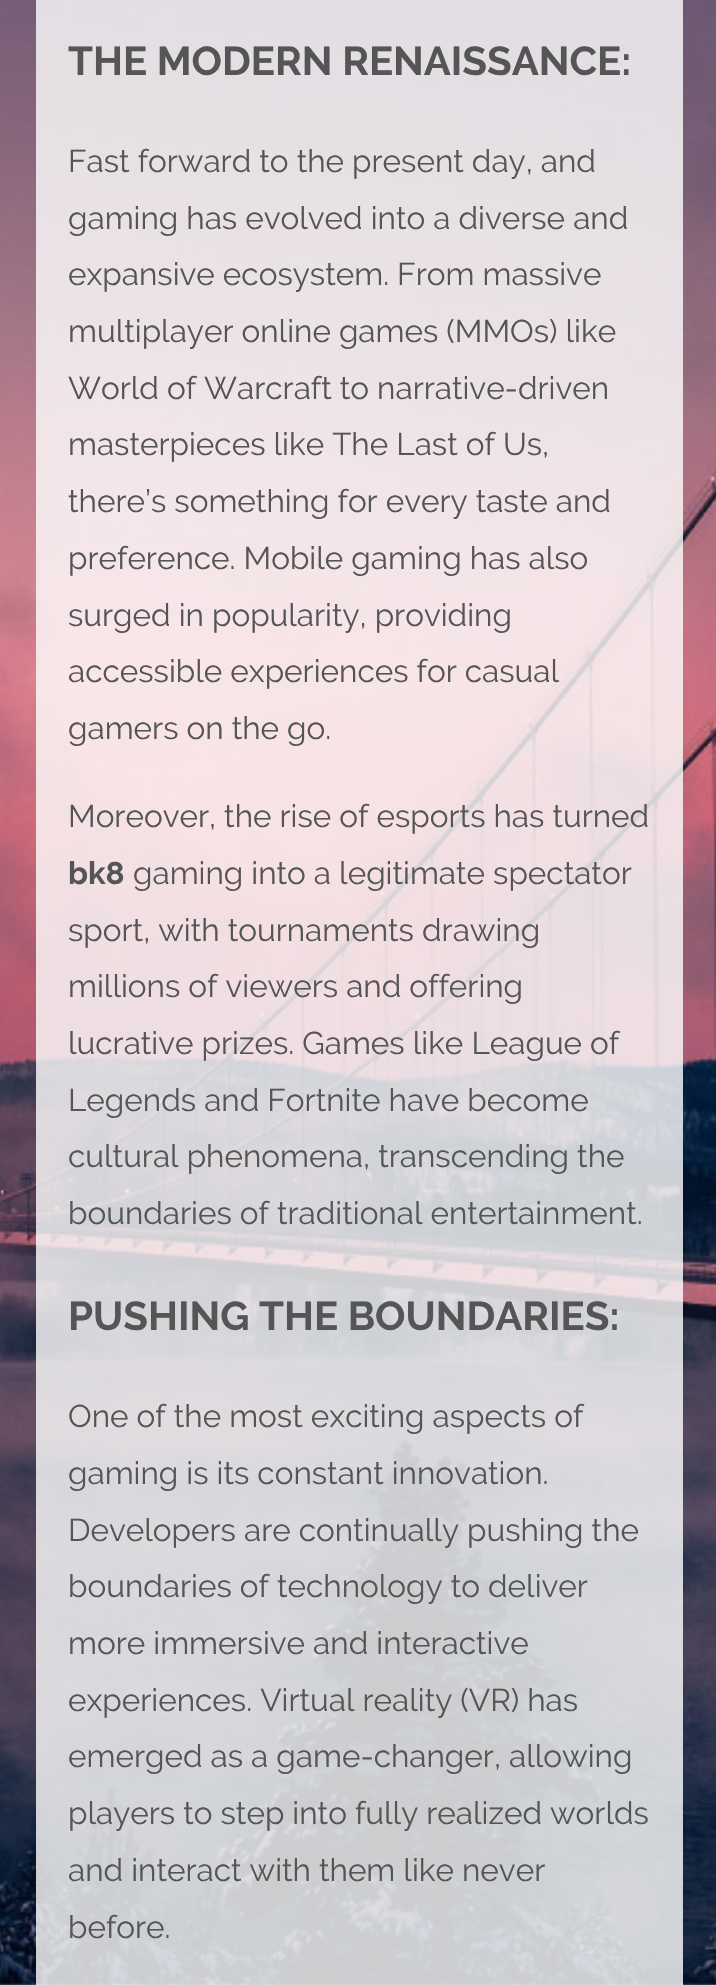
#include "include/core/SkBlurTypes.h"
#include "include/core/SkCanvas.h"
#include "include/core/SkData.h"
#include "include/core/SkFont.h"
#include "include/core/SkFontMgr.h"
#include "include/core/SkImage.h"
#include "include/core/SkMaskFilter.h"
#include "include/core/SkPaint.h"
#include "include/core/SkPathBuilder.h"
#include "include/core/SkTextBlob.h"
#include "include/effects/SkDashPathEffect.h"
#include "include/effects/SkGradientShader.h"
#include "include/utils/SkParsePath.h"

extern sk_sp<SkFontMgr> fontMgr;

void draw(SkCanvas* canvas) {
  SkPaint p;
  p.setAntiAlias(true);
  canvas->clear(SK_ColorWHITE);
  canvas->drawImageRect(SkImages::DeferredFromEncodedData(SkData::MakeFromFileName("images/1.png")), SkRect::MakeLTRB(0, 0, 716, 1985), SkSamplingOptions());
  SkFont font1(fontMgr->matchFamilyStyle("Raleway", SkFontStyle::Bold()), 40.25f);
  font1.setSubpixel(true);
  p.setColor(SkColorSetRGB(85, 85, 85));
  canvas->drawString("THE MODERN RENAISSANCE:", 68, 75, font1, p);
  SkFont font2(fontMgr->matchFamilyStyle("Raleway", SkFontStyle::Normal()), 31.5f);
  font2.setSubpixel(true);
  canvas->drawString("Fast forward to the present day, and", 68, 172, font2, p);
  canvas->drawString("gaming has evolved into a diverse and", 68, 229, font2, p);
  canvas->drawString("expansive ecosystem. From massive", 68, 285, font2, p);
  canvas->drawString("multiplayer online games (MMOs) like", 68, 342, font2, p);
  canvas->drawString("World of Warcraft to narrative-driven", 68, 399, font2, p);
  canvas->drawString("masterpieces like The Last of Us,", 68, 455, font2, p);
  canvas->drawString("there’s something for every taste and", 68, 512, font2, p);
  canvas->drawString("preference. Mobile gaming has also", 68, 569, font2, p);
  canvas->drawString("surged in popularity, providing", 68, 626, font2, p);
  canvas->drawString("accessible experiences for casual", 68, 682, font2, p);
  canvas->drawString("gamers on the go.", 68, 739, font2, p);
  canvas->drawString("Moreover, the rise of esports has turned", 68, 827, font2, p);
  SkFont font3(fontMgr->matchFamilyStyle("Raleway", SkFontStyle::Bold()), 31.5f);
  font3.setSubpixel(true);
  canvas->drawString("bk8", 68, 884, font3, p);
  canvas->drawString("gaming into a legitimate spectator", 133, 884, font2, p);
  canvas->drawString("sport, with tournaments drawing", 68, 941, font2, p);
  canvas->drawString("millions of viewers and offering", 68, 997, font2, p);
  canvas->drawString("lucrative prizes. Games like League of", 68, 1054, font2, p);
  canvas->drawString("Legends and Fortnite have become", 68, 1111, font2, p);
  canvas->drawString("cultural phenomena, transcending the", 68, 1167, font2, p);
  canvas->drawString("boundaries of traditional entertainment.", 68, 1224, font2, p);
  canvas->drawString("PUSHING THE BOUNDARIES:", 68, 1330, font1, p);
  canvas->drawString("One of the most exciting aspects of", 68, 1427, font2, p);
  canvas->drawString("gaming is its constant innovation.", 68, 1484, font2, p);
  canvas->drawString("Developers are continually pushing the", 68, 1541, font2, p);
  canvas->drawString("boundaries of technology to deliver", 68, 1597, font2, p);
  canvas->drawString("more immersive and interactive", 68, 1654, font2, p);
  canvas->drawString("experiences. Virtual reality (VR) has", 68, 1711, font2, p);
  canvas->drawString("emerged as a game-changer, allowing", 68, 1767, font2, p);
  canvas->drawString("players to step into fully realized worlds", 68, 1824, font2, p);
  canvas->drawString("and interact with them like never", 68, 1881, font2, p);
  canvas->drawString("before.", 68, 1938, font2, p);
}
